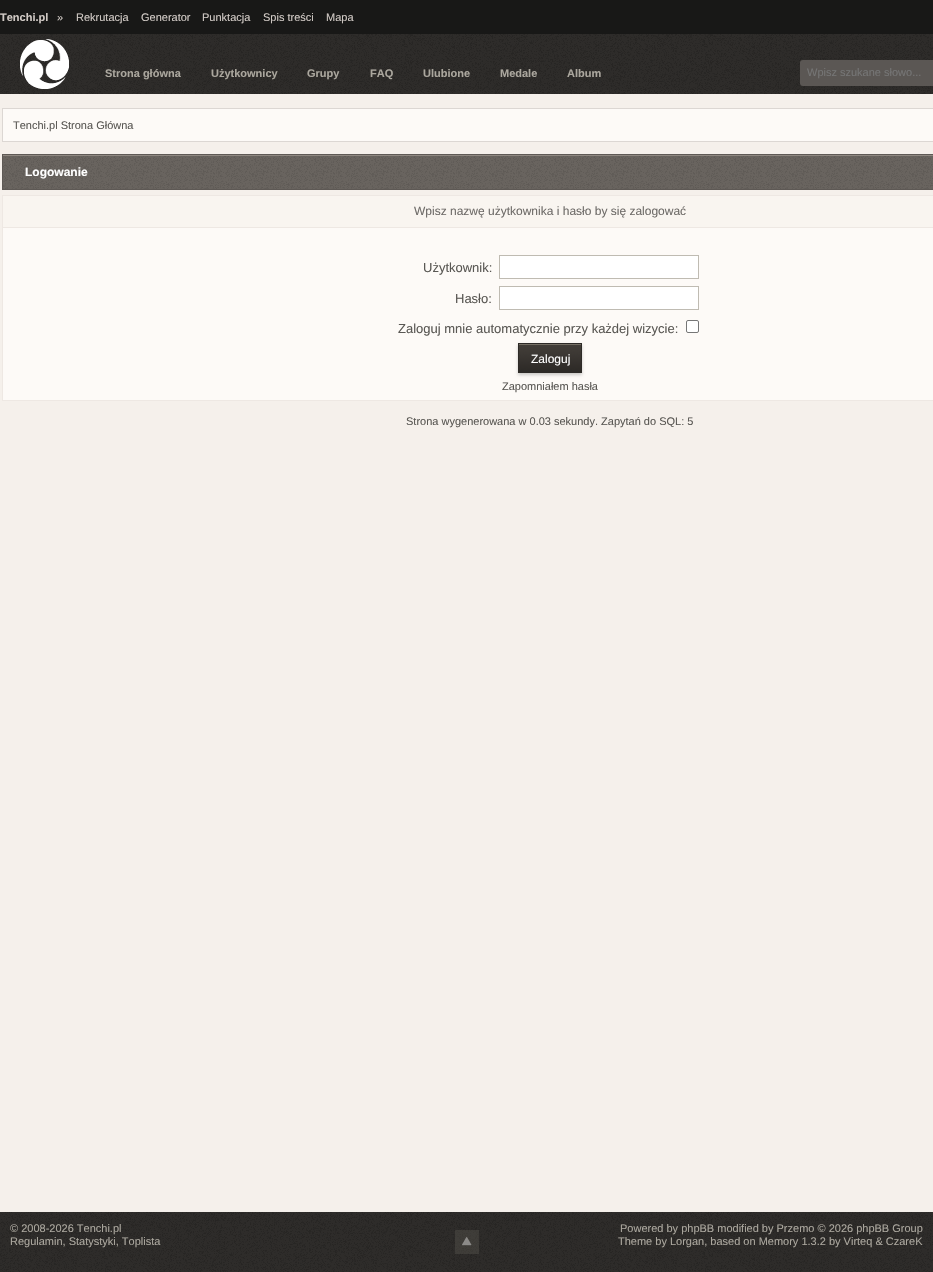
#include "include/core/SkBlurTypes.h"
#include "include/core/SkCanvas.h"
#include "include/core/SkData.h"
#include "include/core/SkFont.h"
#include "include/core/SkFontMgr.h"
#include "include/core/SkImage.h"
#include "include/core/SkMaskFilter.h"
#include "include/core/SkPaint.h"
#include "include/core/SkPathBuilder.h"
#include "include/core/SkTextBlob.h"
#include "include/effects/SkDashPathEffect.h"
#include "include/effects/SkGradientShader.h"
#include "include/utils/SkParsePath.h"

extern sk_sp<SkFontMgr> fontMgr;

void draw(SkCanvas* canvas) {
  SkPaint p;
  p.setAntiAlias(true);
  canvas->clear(SkColorSetRGB(245, 240, 235));
  p.setColor(SkColorSetRGB(24, 24, 23));
  canvas->drawRect(SkRect::MakeLTRB(0, 0, 933, 34), p);
  canvas->drawImageRect(SkImages::DeferredFromEncodedData(SkData::MakeFromFileName("images/1.png")), SkRect::MakeLTRB(90, 34, 933, 94), SkSamplingOptions());
  canvas->drawImageRect(SkImages::DeferredFromEncodedData(SkData::MakeFromFileName("images/2.png")), SkRect::MakeLTRB(0, 34, 90, 94), SkSamplingOptions());
  p.setColor(SkColorSetRGB(91, 87, 84));
  canvas->drawRoundRect(SkRect::MakeLTRB(800, 60, 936, 86), 3, 3, p);
  p.setColor(SkColorSetRGB(253, 250, 247));
  canvas->drawRect(SkRect::MakeLTRB(2.5f, 108.5f, 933.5f, 141.5f), p);
  p.setStyle(SkPaint::kStroke_Style);
  p.setStrokeWidth(1);
  p.setColor(SkColorSetRGB(220, 215, 211));
  canvas->drawRect(SkRect::MakeLTRB(2.5f, 108.5f, 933.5f, 141.5f), p);
  canvas->drawImageRect(SkImages::DeferredFromEncodedData(SkData::MakeFromFileName("images/3.png")), SkRect::MakeLTRB(3, 156, 933, 189), SkSamplingOptions());
  p.setStyle(SkPaint::kFill_Style);
  p.setColor(SkColorSetRGB(143, 136, 129));
  canvas->drawRect(SkRect::MakeLTRB(3, 155, 933, 156), p);
  p.setStyle(SkPaint::kStroke_Style);
  p.setColor(SkColorSetRGB(94, 89, 85));
  canvas->drawRect(SkRect::MakeLTRB(2.5f, 154.5f, 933.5f, 189.5f), p);
  p.setStyle(SkPaint::kFill_Style);
  p.setColor(SkColorSetRGB(238, 232, 227));
  canvas->drawRect(SkRect::MakeLTRB(2, 195, 933, 401), p);
  p.setColor(SkColorSetRGB(249, 245, 240));
  canvas->drawRect(SkRect::MakeLTRB(3, 196, 933, 227), p);
  p.setColor(SkColorSetRGB(253, 250, 247));
  canvas->drawRect(SkRect::MakeLTRB(3, 228, 933, 400), p);
  p.setColor(SK_ColorWHITE);
  canvas->drawRect(SkRect::MakeLTRB(499.5f, 255.5f, 698.5f, 278.5f), p);
  p.setStyle(SkPaint::kStroke_Style);
  p.setColor(SkColorSetRGB(191, 187, 178));
  canvas->drawRect(SkRect::MakeLTRB(499.5f, 255.5f, 698.5f, 278.5f), p);
  p.setStyle(SkPaint::kFill_Style);
  p.setColor(SK_ColorWHITE);
  canvas->drawRect(SkRect::MakeLTRB(499.5f, 286.5f, 698.5f, 309.5f), p);
  p.setStyle(SkPaint::kStroke_Style);
  p.setColor(SkColorSetRGB(191, 187, 178));
  canvas->drawRect(SkRect::MakeLTRB(499.5f, 286.5f, 698.5f, 309.5f), p);
  p.setStyle(SkPaint::kFill_Style);
  p.setColor(SK_ColorWHITE);
  canvas->drawRoundRect(SkRect::MakeLTRB(686.5f, 320.5f, 698.5f, 332.5f), 1.5f, 1.5f, p);
  p.setStyle(SkPaint::kStroke_Style);
  p.setColor(SkColorSetRGB(118, 118, 118));
  canvas->drawRoundRect(SkRect::MakeLTRB(686.5f, 320.5f, 698.5f, 332.5f), 1.5f, 1.5f, p);
  p.setStyle(SkPaint::kFill_Style);
  p.setColor(SkColorSetARGB(51, 0, 0, 0));
  p.setMaskFilter(SkMaskFilter::MakeBlur(kNormal_SkBlurStyle, 1.5f));
  canvas->drawRect(SkRect::MakeLTRB(518, 345, 582, 375), p);
  p.setMaskFilter(nullptr);
  p.setColor(SkColorSetRGB(45, 42, 39));
  canvas->drawRect(SkRect::MakeLTRB(519, 372, 581, 373), p);
  canvas->drawImageRect(SkImages::DeferredFromEncodedData(SkData::MakeFromFileName("images/4.png")), SkRect::MakeLTRB(519, 345, 581, 372), SkSamplingOptions());
  p.setColor(SkColorSetRGB(117, 111, 101));
  canvas->drawRect(SkRect::MakeLTRB(519, 344, 581, 345), p);
  p.setColor(SkColorSetRGB(45, 42, 39));
  canvas->drawRect(SkRect::MakeLTRB(518, 343, 582, 344), p);
  canvas->drawRect(SkRect::MakeLTRB(581, 343, 582, 373), p);
  canvas->drawRect(SkRect::MakeLTRB(518, 343, 519, 373), p);
  canvas->drawImageRect(SkImages::DeferredFromEncodedData(SkData::MakeFromFileName("images/5.png")), SkRect::MakeLTRB(0, 1212, 933, 1272), SkSamplingOptions());
  p.setColor(SkColorSetARGB(102, 87, 84, 78));
  canvas->drawRect(SkRect::MakeLTRB(455, 1230, 479, 1254), p);
  canvas->drawImageRect(SkImages::DeferredFromEncodedData(SkData::MakeFromFileName("images/6.png")), SkRect::MakeLTRB(462, 1237, 472, 1246), SkSamplingOptions());
  SkFont font1(fontMgr->matchFamilyStyle("Liberation Sans", SkFontStyle::Bold()), 11);
  font1.setSubpixel(true);
  p.setColor(SkColorSetRGB(209, 202, 197));
  canvas->drawString("Tenchi.pl", 0, 21, font1, p);
  SkFont font2(fontMgr->matchFamilyStyle("Liberation Sans", SkFontStyle::Normal()), 11);
  font2.setSubpixel(true);
  canvas->drawString("»", 57, 21, font2, p);
  canvas->drawString("Rekrutacja", 76, 21, font2, p);
  canvas->drawString("Generator", 141, 21, font2, p);
  canvas->drawString("Punktacja", 202, 21, font2, p);
  canvas->drawString("Spis treści", 263, 21, font2, p);
  canvas->drawString("Mapa", 326, 21, font2, p);
  p.setColor(SkColorSetRGB(171, 167, 158));
  canvas->drawString("Strona główna", 105, 77, font1, p);
  canvas->drawString("Użytkownicy", 211, 77, font1, p);
  canvas->drawString("Grupy", 307, 77, font1, p);
  canvas->drawString("FAQ", 370, 77, font1, p);
  canvas->drawString("Ulubione", 423, 77, font1, p);
  canvas->drawString("Medale", 500, 77, font1, p);
  canvas->drawString("Album", 567, 77, font1, p);
  p.setColor(SkColorSetRGB(117, 117, 117));
  canvas->drawString("Wpisz szukane słowo...", 807, 76, font2, p);
  p.setColor(SkColorSetRGB(90, 88, 84));
  canvas->drawString("Tenchi.pl Strona Główna", 13, 129, font2, p);
  SkFont font3(fontMgr->matchFamilyStyle("Liberation Sans", SkFontStyle::Bold()), 12);
  font3.setSubpixel(true);
  p.setColor(SK_ColorWHITE);
  canvas->drawString("Logowanie", 25, 176, font3, p);
  SkFont font4(fontMgr->matchFamilyStyle("Liberation Sans", SkFontStyle::Normal()), 12);
  font4.setSubpixel(true);
  p.setColor(SkColorSetRGB(110, 107, 104));
  canvas->drawString("Wpisz nazwę użytkownika i hasło by się zalogować", 414, 215, font4, p);
  SkFont font5(fontMgr->matchFamilyStyle("Liberation Sans", SkFontStyle::Normal()), 13);
  font5.setSubpixel(true);
  p.setColor(SkColorSetRGB(90, 88, 84));
  canvas->drawString("Użytkownik:", 423, 272, font5, p);
  canvas->drawString("Hasło:", 455, 303, font5, p);
  canvas->drawString("Zaloguj mnie automatycznie przy każdej wizycie:", 398, 333, font5, p);
  p.setColor(SK_ColorWHITE);
  canvas->drawString("Zaloguj", 531, 363, font4, p);
  p.setColor(SkColorSetRGB(90, 88, 84));
  canvas->drawString("Zapomniałem hasła", 502, 390, font2, p);
  canvas->drawString("Strona wygenerowana w 0.03 sekundy. Zapytań do SQL: 5", 406, 425, font2, p);
  p.setColor(SkColorSetRGB(171, 167, 158));
  canvas->drawString("© 2008-2026 Tenchi.pl", 10, 1232, font2, p);
  canvas->drawString("Regulamin, Statystyki, Toplista", 10, 1245, font2, p);
  canvas->drawString("Powered by phpBB modified by Przemo © 2026 phpBB Group", 620, 1232, font2, p);
  canvas->drawString("Theme by Lorgan, based on Memory 1.3.2 by Virteq & CzareK", 618, 1245, font2, p);
}
